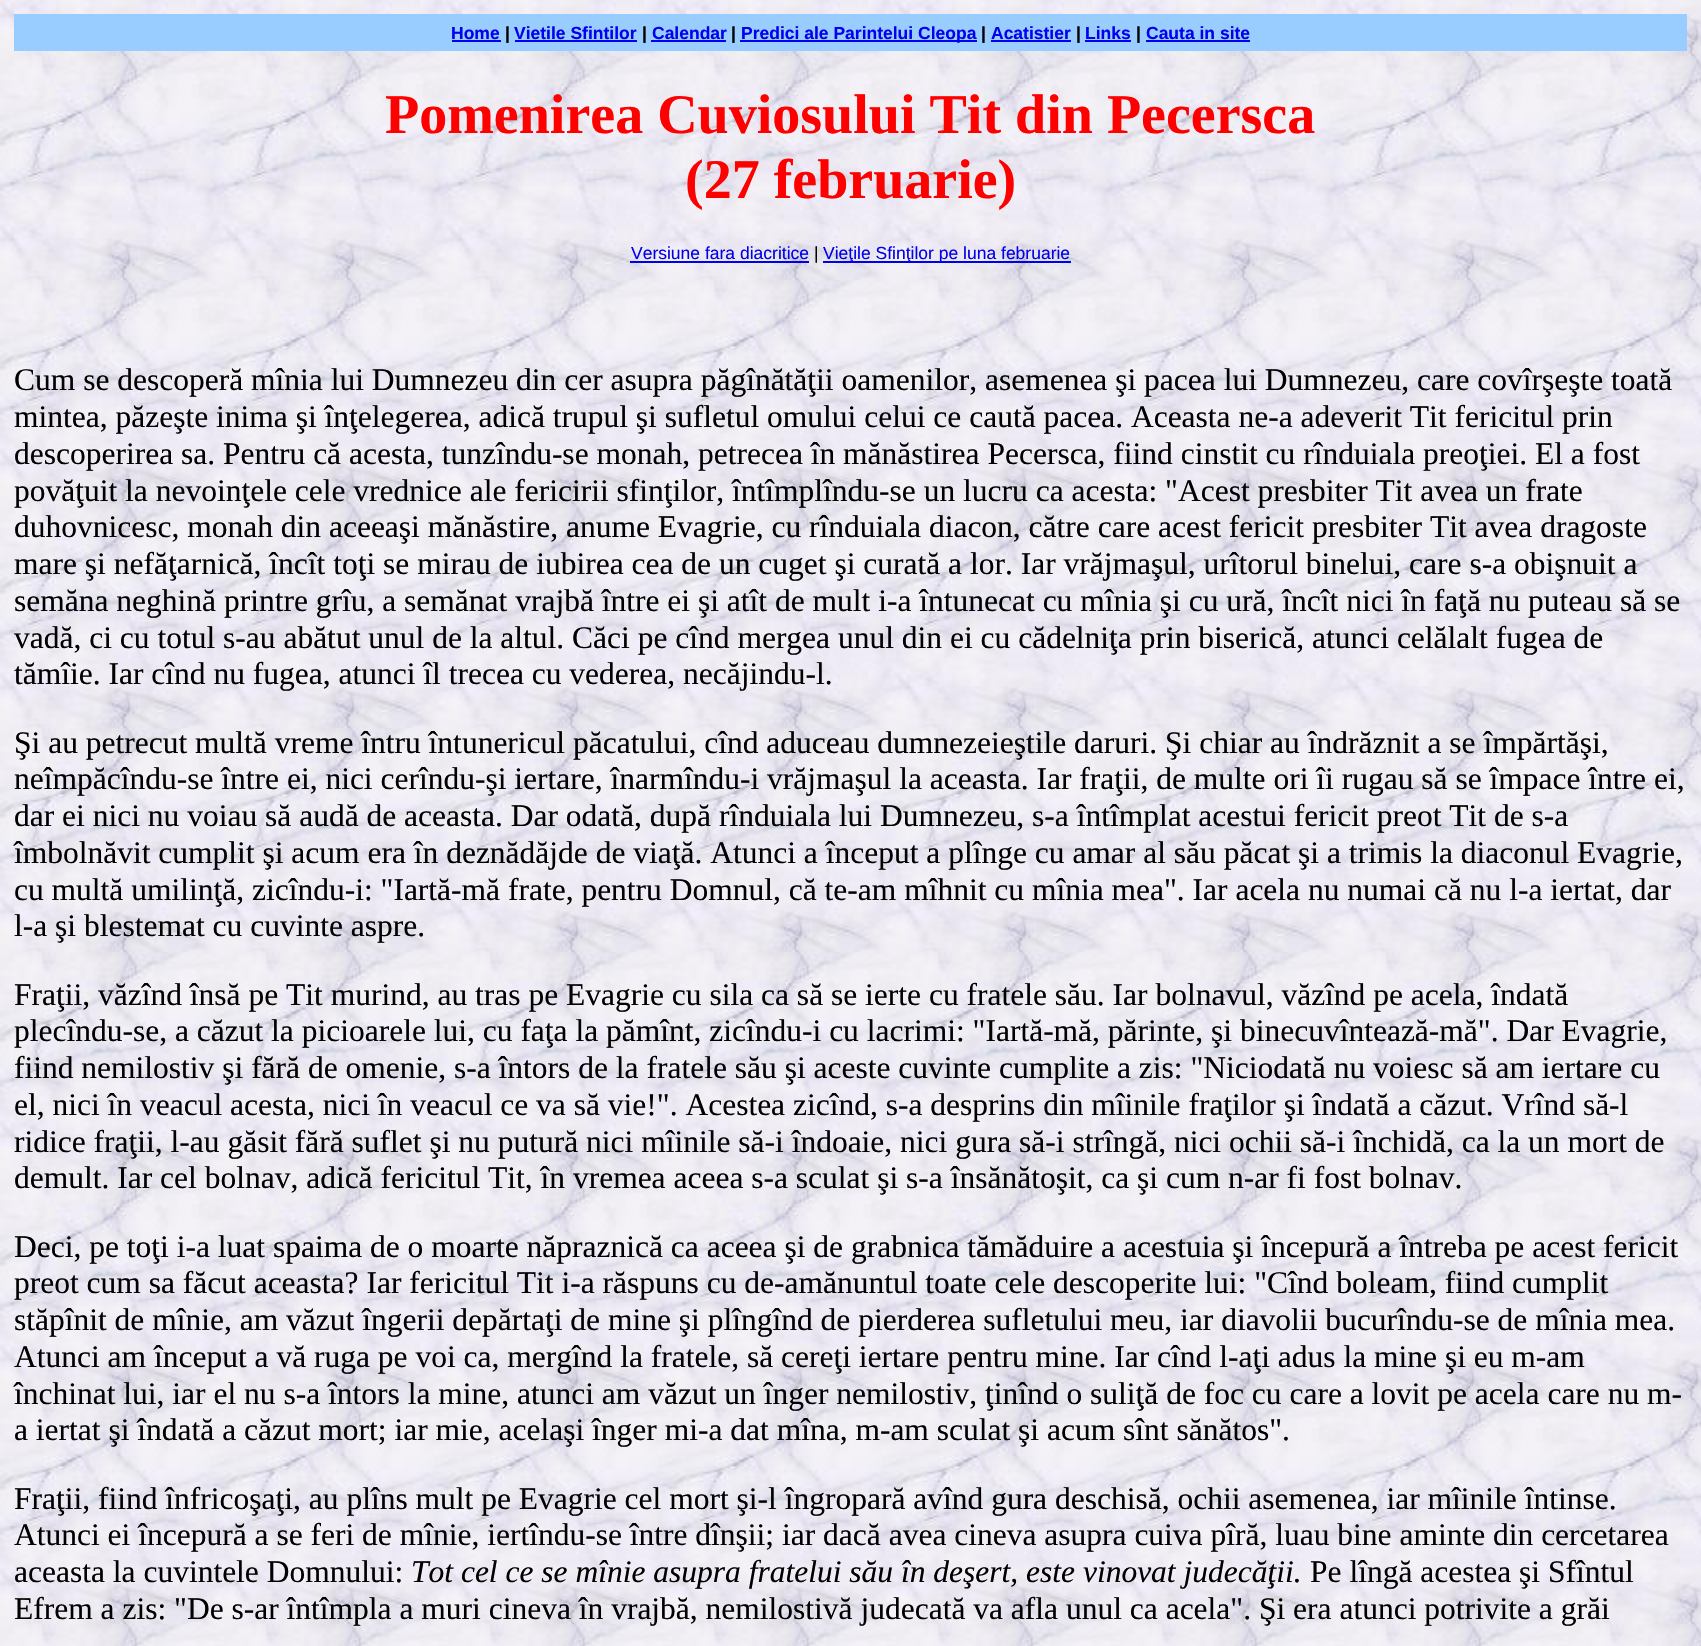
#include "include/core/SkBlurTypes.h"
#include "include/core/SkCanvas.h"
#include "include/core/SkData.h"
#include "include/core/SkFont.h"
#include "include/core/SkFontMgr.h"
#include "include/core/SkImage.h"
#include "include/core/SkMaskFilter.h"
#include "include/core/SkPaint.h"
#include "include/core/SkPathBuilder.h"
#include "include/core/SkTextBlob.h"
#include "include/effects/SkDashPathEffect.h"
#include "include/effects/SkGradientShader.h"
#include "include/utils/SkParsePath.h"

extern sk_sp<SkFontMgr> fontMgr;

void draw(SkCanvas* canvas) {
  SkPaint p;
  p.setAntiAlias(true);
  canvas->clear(SK_ColorWHITE);
  canvas->drawImageRect(SkImages::DeferredFromEncodedData(SkData::MakeFromFileName("images/1.png")), SkRect::MakeLTRB(0, 0, 1701, 1646), SkSamplingOptions());
  p.setColor(SkColorSetRGB(153, 204, 255));
  canvas->drawRect(SkRect::MakeLTRB(14, 14, 1687, 51), p);
  p.setColor(SkColorSetRGB(0, 0, 238));
  canvas->drawRect(SkRect::MakeLTRB(452, 40, 501, 42), p);
  canvas->drawRect(SkRect::MakeLTRB(515, 40, 637, 42), p);
  canvas->drawRect(SkRect::MakeLTRB(651, 40, 726, 42), p);
  canvas->drawRect(SkRect::MakeLTRB(740, 40, 977, 42), p);
  canvas->drawRect(SkRect::MakeLTRB(991, 40, 1071, 42), p);
  canvas->drawRect(SkRect::MakeLTRB(1085, 40, 1131, 42), p);
  canvas->drawRect(SkRect::MakeLTRB(1146, 40, 1250, 42), p);
  canvas->drawRect(SkRect::MakeLTRB(630, 261, 809, 263), p);
  canvas->drawRect(SkRect::MakeLTRB(823, 261, 1071, 263), p);
  SkFont font1(fontMgr->matchFamilyStyle("Liberation Sans", SkFontStyle::Bold()), 17.5f);
  font1.setSubpixel(true);
  canvas->drawString("Home", 451, 39, font1, p);
  p.setColor(SK_ColorBLACK);
  canvas->drawString("|", 505, 39, font1, p);
  p.setColor(SkColorSetRGB(0, 0, 238));
  canvas->drawString("Vietile Sfintilor", 514, 39, font1, p);
  p.setColor(SK_ColorBLACK);
  canvas->drawString("|", 642, 39, font1, p);
  p.setColor(SkColorSetRGB(0, 0, 238));
  canvas->drawString("Calendar", 652, 39, font1, p);
  p.setColor(SK_ColorBLACK);
  canvas->drawString("|", 731, 39, font1, p);
  p.setColor(SkColorSetRGB(0, 0, 238));
  canvas->drawString("Predici ale Parintelui Cleopa", 741, 39, font1, p);
  p.setColor(SK_ColorBLACK);
  canvas->drawString("|", 981, 39, font1, p);
  p.setColor(SkColorSetRGB(0, 0, 238));
  canvas->drawString("Acatistier", 991, 39, font1, p);
  p.setColor(SK_ColorBLACK);
  canvas->drawString("|", 1076, 39, font1, p);
  p.setColor(SkColorSetRGB(0, 0, 238));
  canvas->drawString("Links", 1085, 39, font1, p);
  p.setColor(SK_ColorBLACK);
  canvas->drawString("|", 1136, 39, font1, p);
  p.setColor(SkColorSetRGB(0, 0, 238));
  canvas->drawString("Cauta in site", 1146, 39, font1, p);
  SkFont font2(fontMgr->matchFamilyStyle("Liberation Serif", SkFontStyle::Bold()), 56);
  font2.setSubpixel(true);
  p.setColor(SkColorSetRGB(255, 0, 0));
  canvas->drawString("Pomenirea Cuviosului Tit din Pecersca", 385, 133, font2, p);
  canvas->drawString("(27 februarie)", 685, 198, font2, p);
  SkFont font3(fontMgr->matchFamilyStyle("Liberation Sans", SkFontStyle::Normal()), 17.5f);
  font3.setSubpixel(true);
  p.setColor(SkColorSetRGB(0, 0, 238));
  canvas->drawString("Versiune fara diacritice", 631, 259, font3, p);
  p.setColor(SK_ColorBLACK);
  canvas->drawString("|", 814, 259, font3, p);
  p.setColor(SkColorSetRGB(0, 0, 238));
  canvas->drawString("Vieţile Sfinţilor pe luna februarie", 823, 259, font3, p);
  SkFont font4(fontMgr->matchFamilyStyle("Liberation Serif", SkFontStyle::Normal()), 31.5f);
  font4.setSubpixel(true);
  p.setColor(SK_ColorBLACK);
  canvas->drawString("Cum se descoperă mînia lui Dumnezeu din cer asupra păgînătăţii oamenilor, asemenea şi pacea lui Dumnezeu, care covîrşeşte toată", 14, 390, font4, p);
  canvas->drawString("mintea, păzeşte inima şi înţelegerea, adică trupul şi sufletul omului celui ce caută pacea. Aceasta ne-a adeverit Tit fericitul prin", 14, 427, font4, p);
  canvas->drawString("descoperirea sa. Pentru că acesta, tunzîndu-se monah, petrecea în mănăstirea Pecersca, fiind cinstit cu rînduiala preoţiei. El a fost", 14, 464, font4, p);
  canvas->drawString("povăţuit la nevoinţele cele vrednice ale fericirii sfinţilor, întîmplîndu-se un lucru ca acesta: \"Acest presbiter Tit avea un frate", 14, 501, font4, p);
  canvas->drawString("duhovnicesc, monah din aceeaşi mănăstire, anume Evagrie, cu rînduiala diacon, către care acest fericit presbiter Tit avea dragoste", 14, 537, font4, p);
  canvas->drawString("mare şi nefăţarnică, încît toţi se mirau de iubirea cea de un cuget şi curată a lor. Iar vrăjmaşul, urîtorul binelui, care s-a obişnuit a", 14, 574, font4, p);
  canvas->drawString("semăna neghină printre grîu, a semănat vrajbă între ei şi atît de mult i-a întunecat cu mînia şi cu ură, încît nici în faţă nu puteau să se", 14, 611, font4, p);
  canvas->drawString("vadă, ci cu totul s-au abătut unul de la altul. Căci pe cînd mergea unul din ei cu cădelniţa prin biserică, atunci celălalt fugea de", 14, 648, font4, p);
  canvas->drawString("tămîie. Iar cînd nu fugea, atunci îl trecea cu vederea, necăjindu-l.", 14, 684, font4, p);
  canvas->drawString("Şi au petrecut multă vreme întru întunericul păcatului, cînd aduceau dumnezeieştile daruri. Şi chiar au îndrăznit a se împărtăşi,", 14, 753, font4, p);
  canvas->drawString("neîmpăcîndu-se între ei, nici cerîndu-şi iertare, înarmîndu-i vrăjmaşul la aceasta. Iar fraţii, de multe ori îi rugau să se împace între ei,", 14, 789, font4, p);
  canvas->drawString("dar ei nici nu voiau să audă de aceasta. Dar odată, după rînduiala lui Dumnezeu, s-a întîmplat acestui fericit preot Tit de s-a", 14, 826, font4, p);
  canvas->drawString("îmbolnăvit cumplit şi acum era în deznădăjde de viaţă. Atunci a început a plînge cu amar al său păcat şi a trimis la diaconul Evagrie,", 14, 863, font4, p);
  canvas->drawString("cu multă umilinţă, zicîndu-i: \"Iartă-mă frate, pentru Domnul, că te-am mîhnit cu mînia mea\". Iar acela nu numai că nu l-a iertat, dar", 14, 900, font4, p);
  canvas->drawString("l-a şi blestemat cu cuvinte aspre.", 14, 936, font4, p);
  canvas->drawString("Fraţii, văzînd însă pe Tit murind, au tras pe Evagrie cu sila ca să se ierte cu fratele său. Iar bolnavul, văzînd pe acela, îndată", 14, 1005, font4, p);
  canvas->drawString("plecîndu-se, a căzut la picioarele lui, cu faţa la pămînt, zicîndu-i cu lacrimi: \"Iartă-mă, părinte, şi binecuvîntează-mă\". Dar Evagrie,", 14, 1041, font4, p);
  canvas->drawString("fiind nemilostiv şi fără de omenie, s-a întors de la fratele său şi aceste cuvinte cumplite a zis: \"Niciodată nu voiesc să am iertare cu", 14, 1078, font4, p);
  canvas->drawString("el, nici în veacul acesta, nici în veacul ce va să vie!\". Acestea zicînd, s-a desprins din mîinile fraţilor şi îndată a căzut. Vrînd să-l", 14, 1115, font4, p);
  canvas->drawString("ridice fraţii, l-au găsit fără suflet şi nu putură nici mîinile să-i îndoaie, nici gura să-i strîngă, nici ochii să-i închidă, ca la un mort de", 14, 1152, font4, p);
  canvas->drawString("demult. Iar cel bolnav, adică fericitul Tit, în vremea aceea s-a sculat şi s-a însănătoşit, ca şi cum n-ar fi fost bolnav.", 14, 1188, font4, p);
  canvas->drawString("Deci, pe toţi i-a luat spaima de o moarte năpraznică ca aceea şi de grabnica tămăduire a acestuia şi începură a întreba pe acest fericit", 14, 1257, font4, p);
  canvas->drawString("preot cum sa făcut aceasta? Iar fericitul Tit i-a răspuns cu de-amănuntul toate cele descoperite lui: \"Cînd boleam, fiind cumplit", 14, 1293, font4, p);
  canvas->drawString("stăpînit de mînie, am văzut îngerii depărtaţi de mine şi plîngînd de pierderea sufletului meu, iar diavolii bucurîndu-se de mînia mea.", 14, 1330, font4, p);
  canvas->drawString("Atunci am început a vă ruga pe voi ca, mergînd la fratele, să cereţi iertare pentru mine. Iar cînd l-aţi adus la mine şi eu m-am", 14, 1367, font4, p);
  canvas->drawString("închinat lui, iar el nu s-a întors la mine, atunci am văzut un înger nemilostiv, ţinînd o suliţă de foc cu care a lovit pe acela care nu m-", 14, 1404, font4, p);
  canvas->drawString("a iertat şi îndată a căzut mort; iar mie, acelaşi înger mi-a dat mîna, m-am sculat şi acum sînt sănătos\".", 14, 1440, font4, p);
  canvas->drawString("Fraţii, fiind înfricoşaţi, au plîns mult pe Evagrie cel mort şi-l îngropară avînd gura deschisă, ochii asemenea, iar mîinile întinse.", 14, 1509, font4, p);
  canvas->drawString("Atunci ei începură a se feri de mînie, iertîndu-se între dînşii; iar dacă avea cineva asupra cuiva pîră, luau bine aminte din cercetarea", 14, 1545, font4, p);
  canvas->drawString("aceasta la cuvintele Domnului:", 14, 1582, font4, p);
  SkFont font5(fontMgr->matchFamilyStyle("Liberation Serif", SkFontStyle::Italic()), 31.5f);
  font5.setSubpixel(true);
  canvas->drawString("Tot cel ce se mînie asupra fratelui său în deşert, este vinovat judecăţii.", 411, 1582, font5, p);
  canvas->drawString("Pe lîngă acestea şi Sfîntul", 1310, 1582, font4, p);
  canvas->drawString("Efrem a zis: \"De s-ar întîmpla a muri cineva în vrajbă, nemilostivă judecată va afla unul ca acela\". Şi era atunci potrivite a grăi", 14, 1619, font4, p);
}
